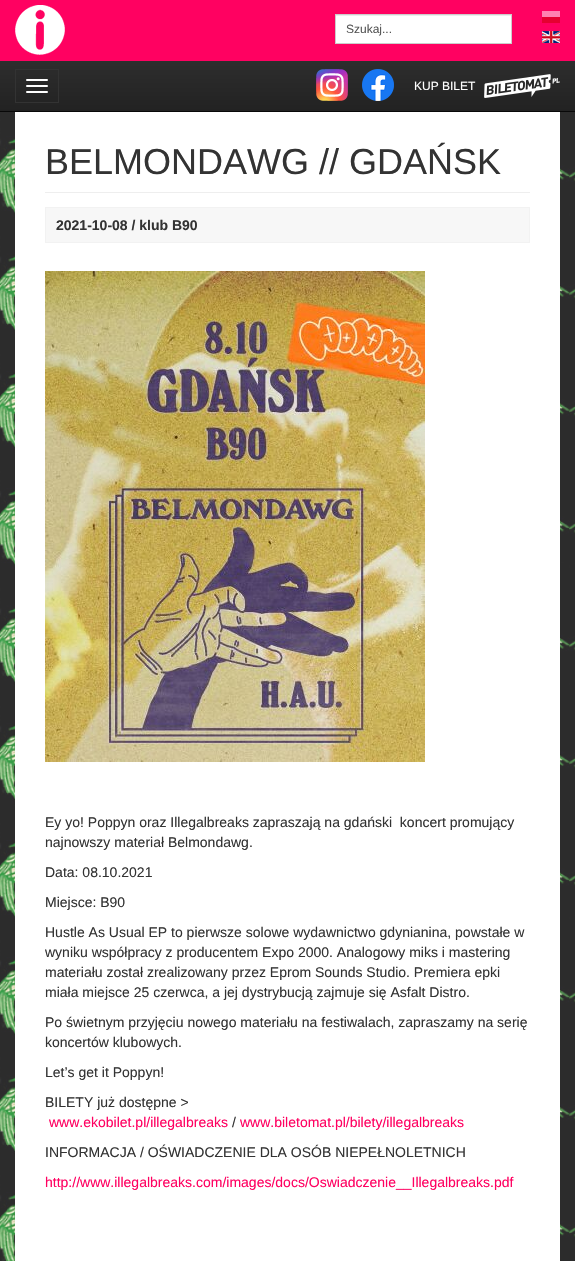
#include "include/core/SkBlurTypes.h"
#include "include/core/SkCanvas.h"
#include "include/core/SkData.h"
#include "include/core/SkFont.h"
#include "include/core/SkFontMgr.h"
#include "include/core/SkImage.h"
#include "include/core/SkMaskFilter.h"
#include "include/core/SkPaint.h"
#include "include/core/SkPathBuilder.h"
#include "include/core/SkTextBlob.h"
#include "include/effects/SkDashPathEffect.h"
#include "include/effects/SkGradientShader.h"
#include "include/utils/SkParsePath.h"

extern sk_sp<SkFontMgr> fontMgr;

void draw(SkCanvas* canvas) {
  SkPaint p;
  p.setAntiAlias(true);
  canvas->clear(SK_ColorWHITE);
  {
    const SkColor colors[] = {SkColorSetRGB(60, 60, 60), SkColorSetRGB(34, 34, 34)};
    const float stops[] = {0, 1};
    const SkPoint ends[] = {{288, 0}, {288, 111}};
    p.setShader(SkGradientShader::MakeLinear(ends, colors, stops, 2, SkTileMode::kClamp));
    p.setAlpha(255);
  }
  canvas->drawRect(SkRect::MakeLTRB(0, 61, 575, 111), p);
  p.setShader(nullptr);
  p.setColor(SkColorSetRGB(8, 8, 8));
  canvas->drawRect(SkRect::MakeLTRB(0, 111, 575, 112), p);
  p.setColor(SkColorSetRGB(255, 1, 97));
  canvas->drawRect(SkRect::MakeLTRB(0, 0, 575, 61), p);
  canvas->drawImageRect(SkImages::DeferredFromEncodedData(SkData::MakeFromFileName("images/1.png")), SkRect::MakeLTRB(15, 5, 65, 55), SkSamplingOptions());
  p.setColor(SK_ColorWHITE);
  canvas->drawRect(SkRect::MakeLTRB(336, 16, 511, 43), p);
  p.setColor(SkColorSetRGB(236, 236, 236));
  canvas->drawRect(SkRect::MakeLTRB(336, 15, 511, 16), p);
  p.setStyle(SkPaint::kStroke_Style);
  p.setStrokeWidth(1);
  p.setColor(SkColorSetRGB(204, 204, 204));
  canvas->drawRect(SkRect::MakeLTRB(335.5f, 14.5f, 511.5f, 43.5f), p);
  canvas->drawImageRect(SkImages::DeferredFromEncodedData(SkData::MakeFromFileName("images/2.png")), SkRect::MakeLTRB(542, 11, 560, 23), SkSamplingOptions());
  canvas->drawImageRect(SkImages::DeferredFromEncodedData(SkData::MakeFromFileName("images/3.png")), SkRect::MakeLTRB(542, 31, 560, 43), SkSamplingOptions());
  p.setColor(SkColorSetRGB(51, 51, 51));
  canvas->drawRect(SkRect::MakeLTRB(15.5f, 69.5f, 58.5f, 102.5f), p);
  p.setStyle(SkPaint::kFill_Style);
  p.setColor(SK_ColorWHITE);
  canvas->drawRoundRect(SkRect::MakeLTRB(26, 79, 48, 81), 1, 1, p);
  canvas->drawRoundRect(SkRect::MakeLTRB(26, 85, 48, 87), 1, 1, p);
  canvas->drawRoundRect(SkRect::MakeLTRB(26, 91, 48, 93), 1, 1, p);
  canvas->drawImageRect(SkImages::DeferredFromEncodedData(SkData::MakeFromFileName("images/4.png")), SkRect::MakeLTRB(316, 69, 348, 101), SkSamplingOptions());
  canvas->drawImageRect(SkImages::DeferredFromEncodedData(SkData::MakeFromFileName("images/5.png")), SkRect::MakeLTRB(362, 69, 394, 101), SkSamplingOptions());
  canvas->drawImageRect(SkImages::DeferredFromEncodedData(SkData::MakeFromFileName("images/6.png")), SkRect::MakeLTRB(484, 74, 560, 98), SkSamplingOptions());
  canvas->drawImageRect(SkImages::DeferredFromEncodedData(SkData::MakeFromFileName("images/7.png")), SkRect::MakeLTRB(0, 112, 575, 1261), SkSamplingOptions());
  canvas->drawRect(SkRect::MakeLTRB(15, 112, 560, 1261), p);
  p.setColor(SkColorSetRGB(238, 238, 238));
  canvas->drawRect(SkRect::MakeLTRB(45, 192, 530, 193), p);
  p.setColor(SkColorSetRGB(247, 247, 247));
  canvas->drawRect(SkRect::MakeLTRB(45.5f, 207.5f, 529.5f, 242.5f), p);
  p.setStyle(SkPaint::kStroke_Style);
  p.setColor(SkColorSetRGB(242, 242, 242));
  canvas->drawRect(SkRect::MakeLTRB(45.5f, 207.5f, 529.5f, 242.5f), p);
  canvas->drawImageRect(SkImages::DeferredFromEncodedData(SkData::MakeFromFileName("images/8.png")), SkRect::MakeLTRB(45, 271, 425, 762), SkSamplingOptions());
  SkFont font1(fontMgr->matchFamilyStyle("Liberation Sans", SkFontStyle::Normal()), 12);
  font1.setSubpixel(true);
  p.setStyle(SkPaint::kFill_Style);
  p.setColor(SkColorSetRGB(85, 85, 85));
  canvas->drawString("Szukaj...", 346, 33, font1, p);
  p.setColor(SK_ColorWHITE);
  canvas->drawString("KUP BILET", 414, 90, font1, p);
  SkFont font2(fontMgr->matchFamilyStyle("Liberation Sans", SkFontStyle::Normal()), 36);
  font2.setSubpixel(true);
  p.setColor(SkColorSetRGB(51, 51, 51));
  canvas->drawString("BELMONDAWG // GDAŃSK", 45, 174, font2, p);
  SkFont font3(fontMgr->matchFamilyStyle("Liberation Sans", SkFontStyle::Bold()), 14);
  font3.setSubpixel(true);
  canvas->drawString("2021-10-08 / klub B90", 56, 230, font3, p);
  SkFont font4(fontMgr->matchFamilyStyle("Liberation Sans", SkFontStyle::Normal()), 14);
  font4.setSubpixel(true);
  canvas->drawString("Ey yo! Poppyn oraz Illegalbreaks zapraszają na gdański  koncert promujący", 45, 827, font4, p);
  canvas->drawString("najnowszy materiał Belmondawg.", 45, 847, font4, p);
  canvas->drawString("Data: 08.10.2021", 45, 877, font4, p);
  canvas->drawString("Miejsce: B90", 45, 907, font4, p);
  canvas->drawString("Hustle As Usual EP to pierwsze solowe wydawnictwo gdynianina, powstałe w", 45, 937, font4, p);
  canvas->drawString("wyniku współpracy z producentem Expo 2000. Analogowy miks i mastering", 45, 957, font4, p);
  canvas->drawString("materiału został zrealizowany przez Eprom Sounds Studio. Premiera epki", 45, 977, font4, p);
  canvas->drawString("miała miejsce 25 czerwca, a jej dystrybucją zajmuje się Asfalt Distro.", 45, 997, font4, p);
  canvas->drawString("Po świetnym przyjęciu nowego materiału na festiwalach, zapraszamy na serię", 45, 1027, font4, p);
  canvas->drawString("koncertów klubowych.", 45, 1047, font4, p);
  canvas->drawString("Let’s get it Poppyn!", 45, 1077, font4, p);
  canvas->drawString("BILETY już dostępne >", 45, 1107, font4, p);
  p.setColor(SkColorSetRGB(255, 1, 97));
  canvas->drawString("www.ekobilet.pl/illegalbreaks", 49, 1127, font4, p);
  p.setColor(SkColorSetRGB(51, 51, 51));
  canvas->drawString("/", 232, 1127, font4, p);
  p.setColor(SkColorSetRGB(255, 1, 97));
  canvas->drawString("www.biletomat.pl/bilety/illegalbreaks", 240, 1127, font4, p);
  p.setColor(SkColorSetRGB(51, 51, 51));
  canvas->drawString("INFORMACJA / OŚWIADCZENIE DLA OSÓB NIEPEŁNOLETNICH", 45, 1157, font4, p);
  p.setColor(SkColorSetRGB(255, 1, 97));
  canvas->drawString("http://www.illegalbreaks.com/images/docs/Oswiadczenie__Illegalbreaks.pdf", 45, 1187, font4, p);
}
